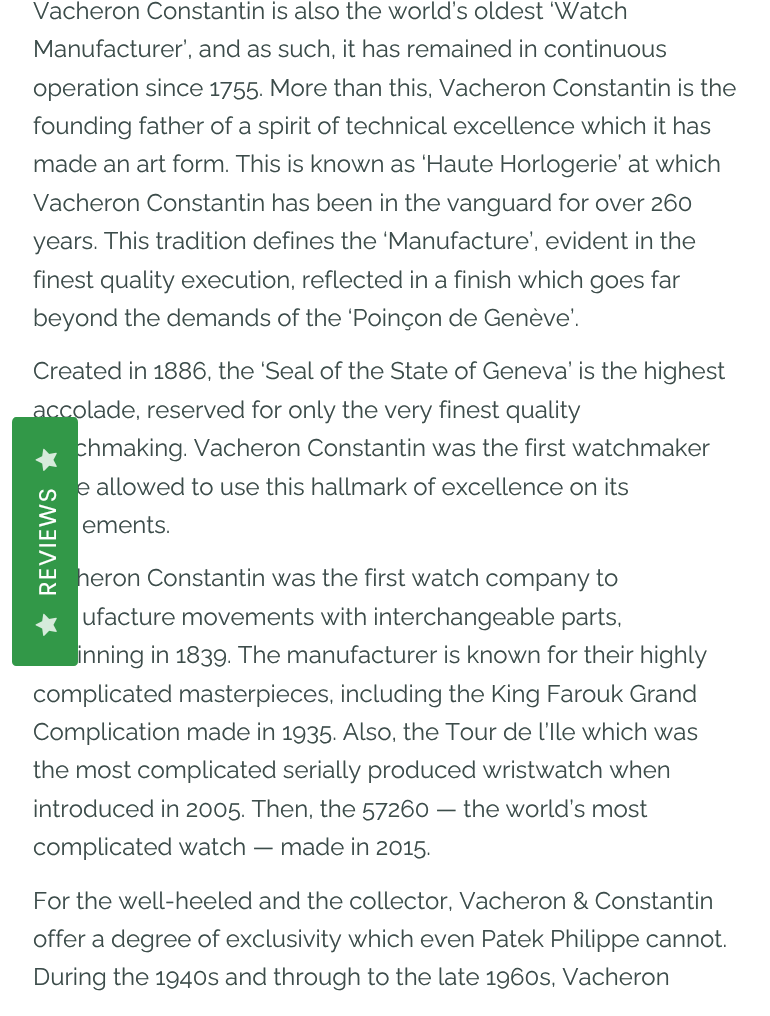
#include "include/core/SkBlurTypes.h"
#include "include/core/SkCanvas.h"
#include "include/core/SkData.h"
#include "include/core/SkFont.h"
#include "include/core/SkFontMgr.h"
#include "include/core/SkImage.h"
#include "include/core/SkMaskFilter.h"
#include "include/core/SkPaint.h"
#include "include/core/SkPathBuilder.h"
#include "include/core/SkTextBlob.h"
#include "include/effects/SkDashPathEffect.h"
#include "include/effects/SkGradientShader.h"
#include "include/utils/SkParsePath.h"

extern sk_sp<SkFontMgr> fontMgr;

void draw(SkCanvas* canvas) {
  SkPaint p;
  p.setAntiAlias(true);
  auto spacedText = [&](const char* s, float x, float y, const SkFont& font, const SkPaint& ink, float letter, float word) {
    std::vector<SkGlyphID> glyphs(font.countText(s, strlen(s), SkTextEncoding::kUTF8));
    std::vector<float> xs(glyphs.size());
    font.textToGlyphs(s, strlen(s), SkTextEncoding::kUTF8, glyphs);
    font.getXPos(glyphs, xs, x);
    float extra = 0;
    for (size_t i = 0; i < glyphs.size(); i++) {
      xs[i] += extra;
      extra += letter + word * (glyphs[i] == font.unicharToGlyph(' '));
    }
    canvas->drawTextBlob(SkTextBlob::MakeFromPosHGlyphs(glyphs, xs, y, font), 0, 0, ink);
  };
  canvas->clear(SK_ColorWHITE);
  SkFont font1(fontMgr->matchFamilyStyle("Raleway", SkFontStyle::Normal()), 24);
  font1.setSubpixel(true);
  p.setColor(SkColorSetRGB(60, 76, 74));
  canvas->drawString("Vacheron Constantin is also the world’s oldest ‘Watch", 33, 19, font1, p);
  canvas->drawString("Manufacturer’, and as such, it has remained in continuous", 33, 57, font1, p);
  canvas->drawString("operation since 1755. More than this, Vacheron Constantin is the", 33, 96, font1, p);
  canvas->drawString("founding father of a spirit of technical excellence which it has", 33, 134, font1, p);
  canvas->drawString("made an art form. This is known as ‘Haute Horlogerie’ at which", 33, 172, font1, p);
  canvas->drawString("Vacheron Constantin has been in the vanguard for over 260", 33, 211, font1, p);
  canvas->drawString("years. This tradition defines the ‘Manufacture’, evident in the", 33, 249, font1, p);
  canvas->drawString("finest quality execution, reflected in a finish which goes far", 33, 288, font1, p);
  canvas->drawString("beyond the demands of the ‘Poinçon de Genève’.", 33, 326, font1, p);
  canvas->drawString("Created in 1886, the ‘Seal of the State of Geneva’ is the highest", 33, 379, font1, p);
  canvas->drawString("accolade, reserved for only the very finest quality", 33, 418, font1, p);
  canvas->drawString("chmaking. Vacheron Constantin was the first watchmaker", 74, 456, font1, p);
  canvas->drawString("e allowed to use this hallmark of excellence on its", 76, 495, font1, p);
  canvas->drawString("ements.", 82, 533, font1, p);
  canvas->drawString("heron Constantin was the first watch company to", 76, 586, font1, p);
  canvas->drawString("ufacture movements with interchangeable parts,", 82, 625, font1, p);
  canvas->drawString("inning in 1839. The manufacturer is known for their highly", 77, 663, font1, p);
  canvas->drawString("complicated masterpieces, including the King Farouk Grand", 33, 702, font1, p);
  canvas->drawString("Complication made in 1935. Also, the Tour de l’Ile which was", 33, 740, font1, p);
  canvas->drawString("the most complicated serially produced wristwatch when", 33, 778, font1, p);
  canvas->drawString("introduced in 2005. Then, the 57260 — the world’s most", 33, 817, font1, p);
  canvas->drawString("complicated watch — made in 2015.", 33, 855, font1, p);
  canvas->drawString("For the well-heeled and the collector, Vacheron & Constantin", 33, 909, font1, p);
  canvas->drawString("offer a degree of exclusivity which even Patek Philippe cannot.", 33, 947, font1, p);
  canvas->drawString("During the 1940s and through to the late 1960s, Vacheron", 33, 985, font1, p);
  p.setColor(SkColorSetRGB(50, 152, 72));
  canvas->drawPath(SkPathBuilder().moveTo(12, 662).lineTo(12, 422).cubicTo(12, 419, 14, 417, 16, 417).lineTo(74, 417).cubicTo(76, 417, 78, 419, 78, 422).lineTo(78, 662).cubicTo(78, 664, 76, 666, 74, 666).lineTo(16, 666).cubicTo(14, 666, 12, 664, 12, 662).close().detach(), p);
  canvas->drawImageRect(SkImages::DeferredFromEncodedData(SkData::MakeFromFileName("images/1.png")), SkRect::MakeLTRB(35, 448, 57, 471), SkSamplingOptions());
  SkFont font2(fontMgr->matchFamilyStyle("Poppins", SkFontStyle::Normal()), 24);
  font2.setSubpixel(true);
  p.setColor(SK_ColorWHITE);
  canvas->save();
  canvas->rotate(-90, 56, 596);
  spacedText("REVIEWS", 56, 596, font2, p, 1.5f, 0);
  canvas->restore();
  canvas->drawImageRect(SkImages::DeferredFromEncodedData(SkData::MakeFromFileName("images/1.png")), SkRect::MakeLTRB(35, 613, 57, 636), SkSamplingOptions());
}
